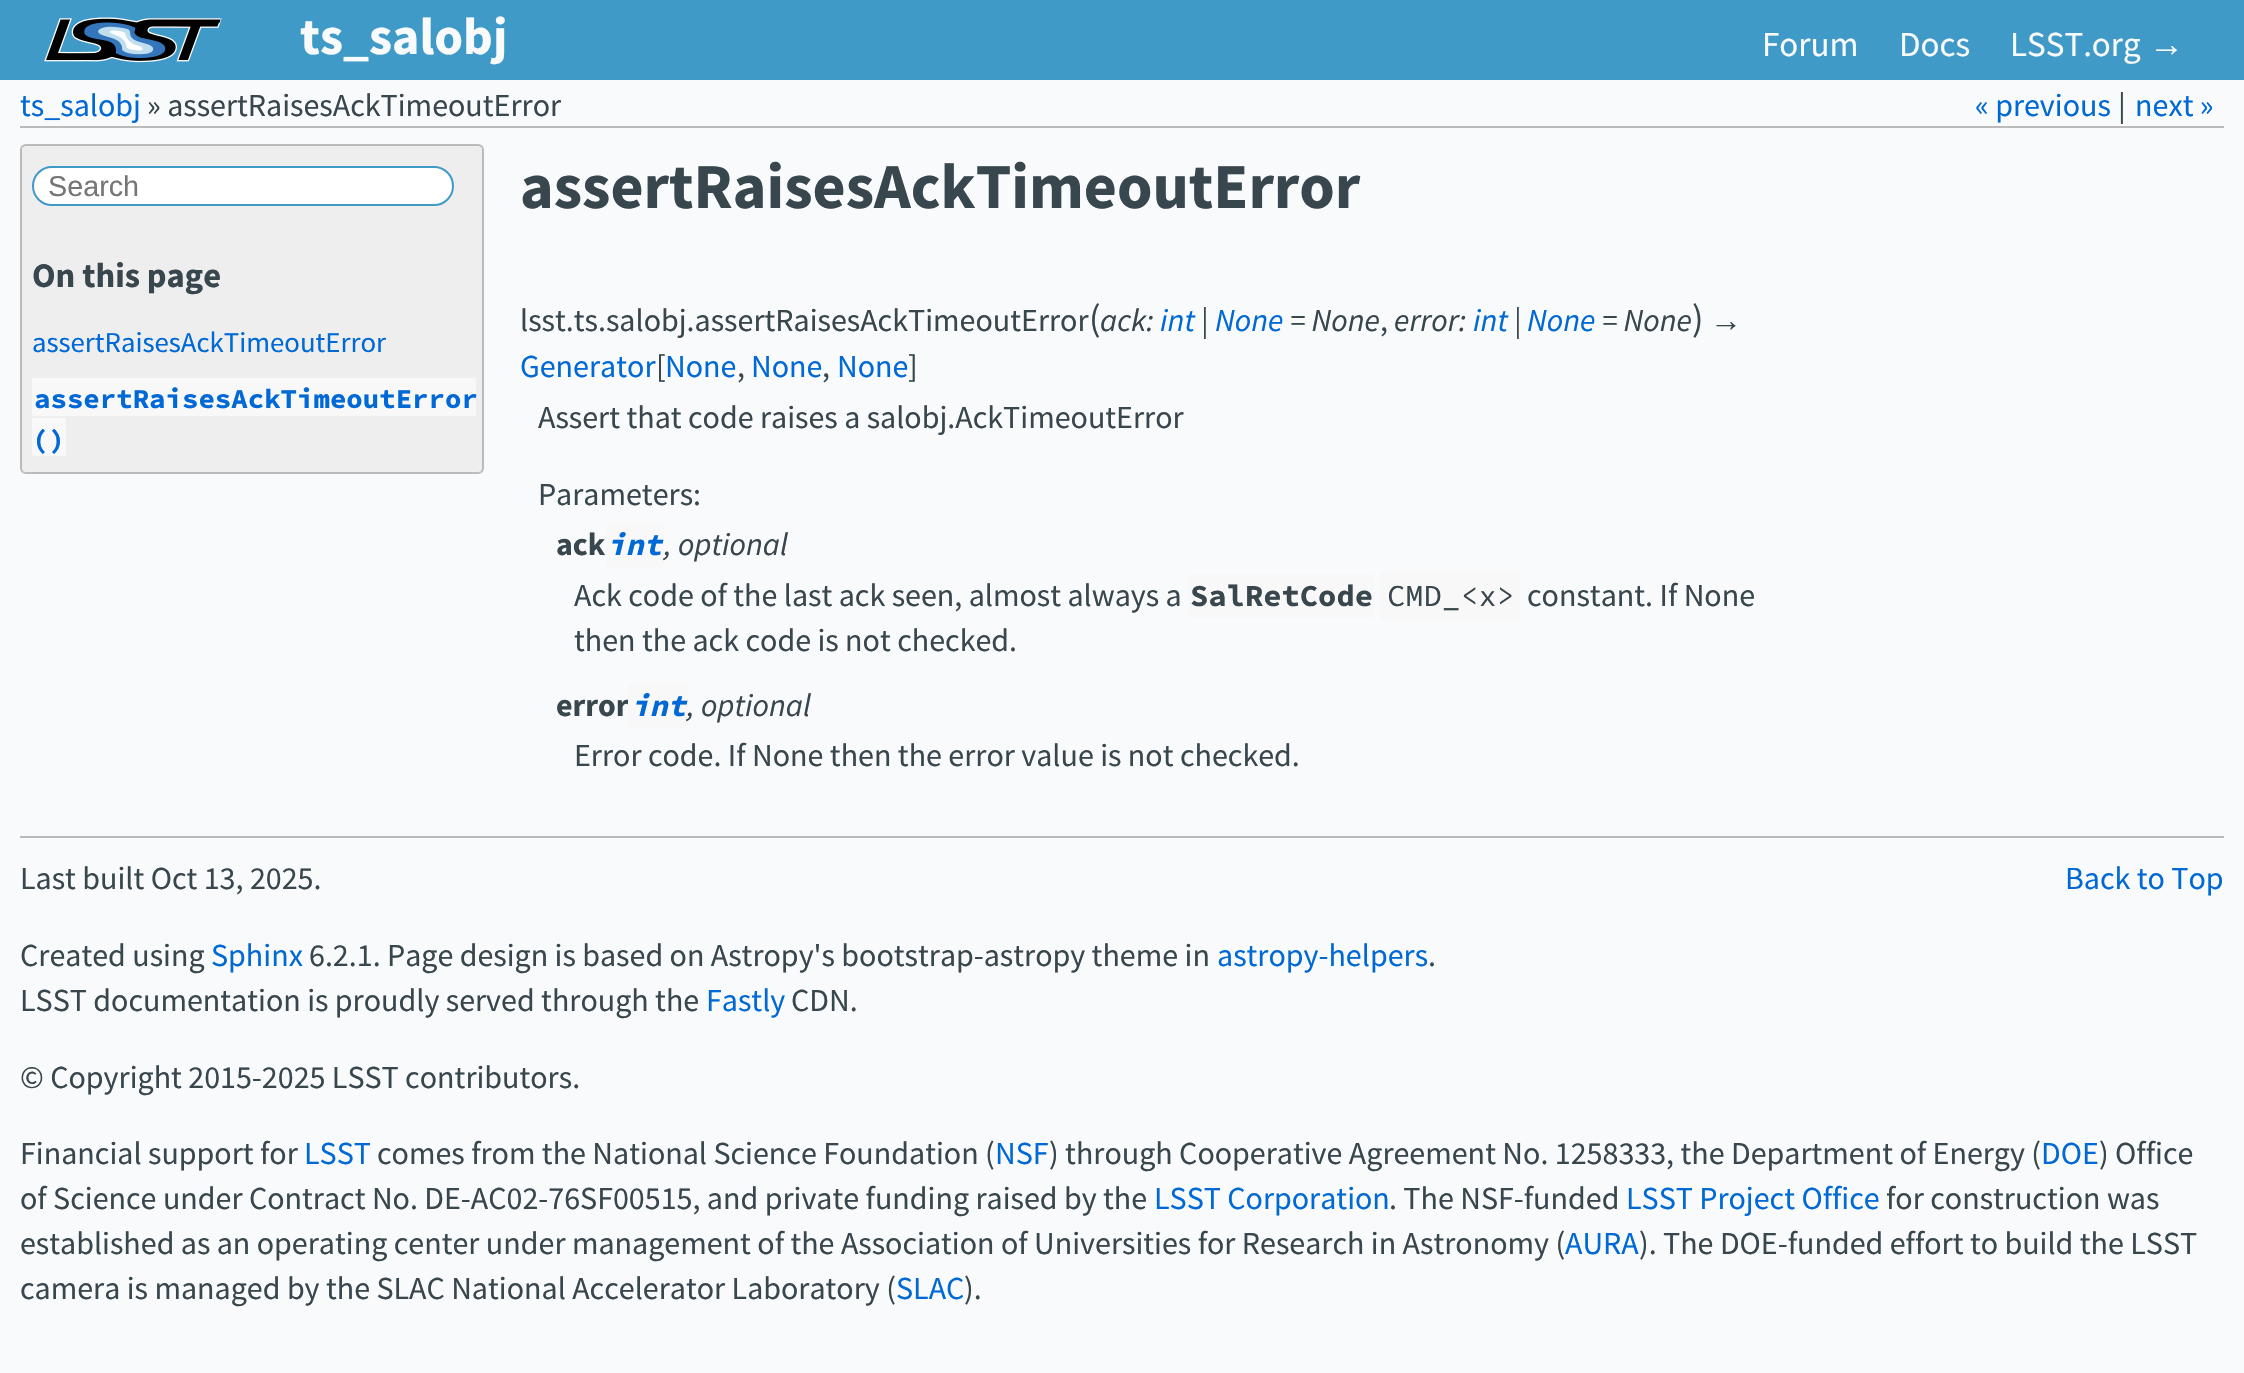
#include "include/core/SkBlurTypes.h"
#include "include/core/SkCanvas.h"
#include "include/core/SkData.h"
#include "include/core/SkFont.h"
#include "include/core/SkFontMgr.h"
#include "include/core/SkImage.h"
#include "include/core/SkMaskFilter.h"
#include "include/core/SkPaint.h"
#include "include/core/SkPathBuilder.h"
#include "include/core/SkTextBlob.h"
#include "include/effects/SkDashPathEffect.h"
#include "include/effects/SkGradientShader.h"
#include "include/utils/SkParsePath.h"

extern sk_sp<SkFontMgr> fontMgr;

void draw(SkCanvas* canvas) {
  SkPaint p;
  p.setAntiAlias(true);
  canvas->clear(SkColorSetRGB(249, 250, 251));
  p.setColor(SkColorSetRGB(64, 154, 199));
  canvas->drawRect(SkRect::MakeLTRB(0, 0, 2244, 80), p);
  canvas->drawImageRect(SkImages::DeferredFromEncodedData(SkData::MakeFromFileName("images/1.png")), SkRect::MakeLTRB(44, 17, 222, 63), SkSamplingOptions());
  p.setColor(SkColorSetRGB(187, 187, 187));
  canvas->drawRect(SkRect::MakeLTRB(20, 126, 2224, 128), p);
  p.setColor(SkColorSetRGB(238, 238, 238));
  canvas->drawRoundRect(SkRect::MakeLTRB(21, 145, 483, 473), 5, 5, p);
  p.setStyle(SkPaint::kStroke_Style);
  p.setStrokeWidth(2);
  p.setColor(SkColorSetRGB(187, 187, 187));
  canvas->drawRoundRect(SkRect::MakeLTRB(21, 145, 483, 473), 5, 5, p);
  p.setStyle(SkPaint::kFill_Style);
  p.setColor(SK_ColorWHITE);
  canvas->drawRoundRect(SkRect::MakeLTRB(33, 167, 453, 205), 19, 19, p);
  p.setStyle(SkPaint::kStroke_Style);
  p.setColor(SkColorSetRGB(64, 154, 199));
  canvas->drawRoundRect(SkRect::MakeLTRB(33, 167, 453, 205), 19, 19, p);
  p.setStyle(SkPaint::kFill_Style);
  p.setColor(SkColorSetRGB(248, 248, 248));
  canvas->drawRect(SkRect::MakeLTRB(32, 378, 476, 416), p);
  canvas->drawRect(SkRect::MakeLTRB(32, 418, 66, 456), p);
  canvas->drawRect(SkRect::MakeLTRB(606, 524, 664, 568), p);
  canvas->drawRect(SkRect::MakeLTRB(1188, 574, 1374, 618), p);
  canvas->drawRect(SkRect::MakeLTRB(1380, 572, 1520, 620), p);
  p.setColor(SkColorSetRGB(187, 187, 187));
  canvas->drawRect(SkRect::MakeLTRB(20, 836, 2224, 838), p);
  SkFont font1(fontMgr->matchFamilyStyle("Source Sans Pro", SkFontStyle::Bold()), 52);
  font1.setSubpixel(true);
  p.setColor(SkColorSetRGB(249, 250, 251));
  canvas->drawString("ts_salobj", 300, 54, font1, p);
  SkFont font2(fontMgr->matchFamilyStyle("Source Sans Pro", SkFontStyle::Normal()), 35);
  font2.setSubpixel(true);
  canvas->drawString("Forum", 1762, 56, font2, p);
  canvas->drawString("Docs", 1899, 56, font2, p);
  canvas->drawString("LSST.org", 2010, 56, font2, p);
  SkFont font3(fontMgr->matchFamilyStyle("Liberation Sans", SkFontStyle::Normal()), 35);
  font3.setSubpixel(true);
  canvas->drawString("→", 2149, 56, font3, p);
  SkFont font4(fontMgr->matchFamilyStyle("Source Sans Pro", SkFontStyle::Normal()), 32);
  font4.setSubpixel(true);
  p.setColor(SkColorSetRGB(0, 105, 214));
  canvas->drawString("ts_salobj", 20, 116, font4, p);
  p.setColor(SkColorSetRGB(56, 70, 77));
  canvas->drawString("» assertRaisesAckTimeoutError", 147, 116, font4, p);
  p.setColor(SkColorSetRGB(0, 105, 214));
  canvas->drawString("« previous", 1975, 116, font4, p);
  p.setColor(SkColorSetRGB(56, 70, 77));
  canvas->drawString("|", 2118, 116, font4, p);
  p.setColor(SkColorSetRGB(0, 105, 214));
  canvas->drawString("next »", 2135, 116, font4, p);
  SkFont font5(fontMgr->matchFamilyStyle("Liberation Sans", SkFontStyle::Normal()), 28.75f);
  font5.setSubpixel(true);
  p.setColor(SkColorSetRGB(117, 117, 117));
  canvas->drawString("Search", 48, 196, font5, p);
  SkFont font6(fontMgr->matchFamilyStyle("Source Sans Pro", SkFontStyle::Bold()), 34.5f);
  font6.setSubpixel(true);
  p.setColor(SkColorSetRGB(56, 70, 77));
  canvas->drawString("On this page", 32, 287, font6, p);
  SkFont font7(fontMgr->matchFamilyStyle("Source Sans Pro", SkFontStyle::Normal()), 28.75f);
  font7.setSubpixel(true);
  p.setColor(SkColorSetRGB(0, 105, 214));
  canvas->drawString("assertRaisesAckTimeoutError", 32, 352, font7, p);
  SkFont font8(fontMgr->matchFamilyStyle("Source Code Pro", SkFontStyle::Bold()), 27.4f);
  font8.setSubpixel(true);
  canvas->drawString("assertRaisesAckTimeoutError", 34, 408, font8, p);
  canvas->drawString("()", 32, 449, font8, p);
  SkFont font9(fontMgr->matchFamilyStyle("Source Sans Pro", SkFontStyle::Bold()), 64);
  font9.setSubpixel(true);
  p.setColor(SkColorSetRGB(56, 70, 77));
  canvas->drawString("assertRaisesAckTimeoutError", 520, 208, font9, p);
  canvas->drawString("lsst.ts.salobj.assertRaisesAckTimeoutError", 520, 331, font4, p);
  SkFont font10(fontMgr->matchFamilyStyle("Source Sans Pro", SkFontStyle::Normal()), 38);
  font10.setSubpixel(true);
  canvas->drawString("(", 1089, 331, font10, p);
  SkFont font11(fontMgr->matchFamilyStyle("Source Sans Pro", SkFontStyle::Italic()), 32);
  font11.setSubpixel(true);
  canvas->drawString("ack:", 1100, 331, font11, p);
  p.setColor(SkColorSetRGB(0, 105, 214));
  canvas->drawString("int", 1160, 331, font11, p);
  p.setColor(SkColorSetRGB(56, 70, 77));
  canvas->drawString("|", 1201, 331, font11, p);
  p.setColor(SkColorSetRGB(0, 105, 214));
  canvas->drawString("None", 1215, 331, font11, p);
  p.setColor(SkColorSetRGB(56, 70, 77));
  canvas->drawString("= None", 1290, 331, font11, p);
  canvas->drawString("error:", 1394, 331, font11, p);
  p.setColor(SkColorSetRGB(0, 105, 214));
  canvas->drawString("int", 1473, 331, font11, p);
  p.setColor(SkColorSetRGB(56, 70, 77));
  canvas->drawString("|", 1514, 331, font11, p);
  p.setColor(SkColorSetRGB(0, 105, 214));
  canvas->drawString("None", 1527, 331, font11, p);
  p.setColor(SkColorSetRGB(56, 70, 77));
  canvas->drawString("= None", 1602, 331, font11, p);
  canvas->drawString(")", 1692, 331, font10, p);
  SkFont font12(fontMgr->matchFamilyStyle("Liberation Sans", SkFontStyle::Normal()), 32);
  font12.setSubpixel(true);
  canvas->drawString("→", 1710, 331, font12, p);
  canvas->drawString(",", 1380, 331, font4, p);
  p.setColor(SkColorSetRGB(0, 105, 214));
  canvas->drawString("Generator", 520, 377, font4, p);
  p.setColor(SkColorSetRGB(56, 70, 77));
  canvas->drawString("[", 656, 377, font4, p);
  p.setColor(SkColorSetRGB(0, 105, 214));
  canvas->drawString("None", 665, 377, font4, p);
  p.setColor(SkColorSetRGB(56, 70, 77));
  canvas->drawString(",", 737, 377, font4, p);
  p.setColor(SkColorSetRGB(0, 105, 214));
  canvas->drawString("None", 751, 377, font4, p);
  p.setColor(SkColorSetRGB(56, 70, 77));
  canvas->drawString(",", 822, 377, font4, p);
  p.setColor(SkColorSetRGB(0, 105, 214));
  canvas->drawString("None", 837, 377, font4, p);
  p.setColor(SkColorSetRGB(56, 70, 77));
  canvas->drawString("]", 908, 377, font4, p);
  canvas->drawString("Assert that code raises a salobj.AckTimeoutError", 538, 428, font4, p);
  canvas->drawString("Parameters:", 538, 505, font4, p);
  SkFont font13(fontMgr->matchFamilyStyle("Source Sans Pro", SkFontStyle::Bold()), 32);
  font13.setSubpixel(true);
  canvas->drawString("ack", 556, 555, font13, p);
  SkFont font14(fontMgr->matchFamilyStyle("Source Code Pro", SkFontStyle::BoldItalic()), 30.5f);
  font14.setSubpixel(true);
  p.setColor(SkColorSetRGB(0, 105, 214));
  canvas->drawString("int", 607, 555, font14, p);
  p.setColor(SkColorSetRGB(56, 70, 77));
  canvas->drawString(", optional", 664, 555, font11, p);
  canvas->drawString("Ack code of the last ack seen, almost always a", 574, 606, font4, p);
  SkFont font15(fontMgr->matchFamilyStyle("Source Code Pro", SkFontStyle::Bold()), 30.5f);
  font15.setSubpixel(true);
  canvas->drawString("SalRetCode", 1190, 606, font15, p);
  SkFont font16(fontMgr->matchFamilyStyle("Source Code Pro", SkFontStyle::Normal()), 30.5f);
  font16.setSubpixel(true);
  canvas->drawString("CMD_<x>", 1387, 606, font16, p);
  canvas->drawString("constant. If None", 1527, 606, font4, p);
  canvas->drawString("then the ack code is not checked.", 574, 651, font4, p);
  canvas->drawString("error", 556, 716, font13, p);
  p.setColor(SkColorSetRGB(248, 248, 248));
  canvas->drawRect(SkRect::MakeLTRB(628, 684, 688, 728), p);
  p.setColor(SkColorSetRGB(0, 105, 214));
  canvas->drawString("int", 631, 716, font14, p);
  p.setColor(SkColorSetRGB(56, 70, 77));
  canvas->drawString(", optional", 687, 716, font11, p);
  canvas->drawString("Error code. If None then the error value is not checked.", 574, 766, font4, p);
  canvas->drawString("Last built Oct 13, 2025.", 20, 889, font4, p);
  p.setColor(SkColorSetRGB(0, 105, 214));
  canvas->drawString("Back to Top", 2065, 889, font4, p);
  p.setColor(SkColorSetRGB(56, 70, 77));
  canvas->drawString("Created using", 20, 966, font4, p);
  p.setColor(SkColorSetRGB(0, 105, 214));
  canvas->drawString("Sphinx", 211, 966, font4, p);
  p.setColor(SkColorSetRGB(56, 70, 77));
  canvas->drawString("6.2.1. Page design is based on Astropy's bootstrap-astropy theme in", 309, 966, font4, p);
  p.setColor(SkColorSetRGB(0, 105, 214));
  canvas->drawString("astropy-helpers", 1217, 966, font4, p);
  p.setColor(SkColorSetRGB(56, 70, 77));
  canvas->drawString(".", 1428, 966, font4, p);
  canvas->drawString("LSST documentation is proudly served through the", 20, 1011, font4, p);
  p.setColor(SkColorSetRGB(0, 105, 214));
  canvas->drawString("Fastly", 706, 1011, font4, p);
  p.setColor(SkColorSetRGB(56, 70, 77));
  canvas->drawString("CDN.", 791, 1011, font4, p);
  canvas->drawString("© Copyright 2015-2025 LSST contributors.", 20, 1088, font4, p);
  canvas->drawString("Financial support for", 20, 1164, font4, p);
  p.setColor(SkColorSetRGB(0, 105, 214));
  canvas->drawString("LSST", 304, 1164, font4, p);
  p.setColor(SkColorSetRGB(56, 70, 77));
  canvas->drawString("comes from the National Science Foundation (", 377, 1164, font4, p);
  p.setColor(SkColorSetRGB(0, 105, 214));
  canvas->drawString("NSF", 995, 1164, font4, p);
  p.setColor(SkColorSetRGB(56, 70, 77));
  canvas->drawString(") through Cooperative Agreement No. 1258333, the Department of Energy (", 1049, 1164, font4, p);
  p.setColor(SkColorSetRGB(0, 105, 214));
  canvas->drawString("DOE", 2041, 1164, font4, p);
  p.setColor(SkColorSetRGB(56, 70, 77));
  canvas->drawString(") Office", 2099, 1164, font4, p);
  canvas->drawString("of Science under Contract No. DE-AC02-76SF00515, and private funding raised by the", 20, 1209, font4, p);
  p.setColor(SkColorSetRGB(0, 105, 214));
  canvas->drawString("LSST Corporation", 1154, 1209, font4, p);
  p.setColor(SkColorSetRGB(56, 70, 77));
  canvas->drawString(". The NSF-funded", 1389, 1209, font4, p);
  p.setColor(SkColorSetRGB(0, 105, 214));
  canvas->drawString("LSST Project Office", 1626, 1209, font4, p);
  p.setColor(SkColorSetRGB(56, 70, 77));
  canvas->drawString("for construction was", 1886, 1209, font4, p);
  canvas->drawString("established as an operating center under management of the Association of Universities for Research in Astronomy (", 20, 1254, font4, p);
  p.setColor(SkColorSetRGB(0, 105, 214));
  canvas->drawString("AURA", 1565, 1254, font4, p);
  p.setColor(SkColorSetRGB(56, 70, 77));
  canvas->drawString("). The DOE-funded effort to build the LSST", 1639, 1254, font4, p);
  canvas->drawString("camera is managed by the SLAC National Accelerator Laboratory (", 20, 1299, font4, p);
  p.setColor(SkColorSetRGB(0, 105, 214));
  canvas->drawString("SLAC", 896, 1299, font4, p);
  p.setColor(SkColorSetRGB(56, 70, 77));
  canvas->drawString(").", 964, 1299, font4, p);
}
